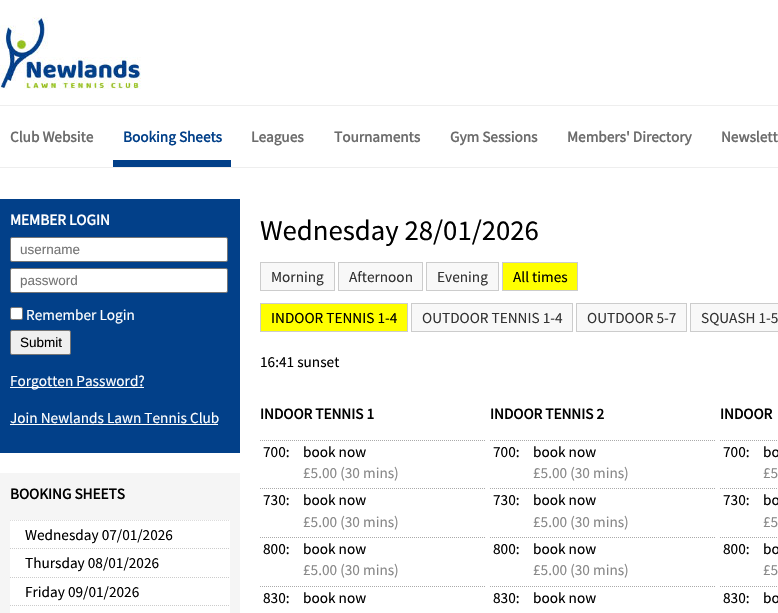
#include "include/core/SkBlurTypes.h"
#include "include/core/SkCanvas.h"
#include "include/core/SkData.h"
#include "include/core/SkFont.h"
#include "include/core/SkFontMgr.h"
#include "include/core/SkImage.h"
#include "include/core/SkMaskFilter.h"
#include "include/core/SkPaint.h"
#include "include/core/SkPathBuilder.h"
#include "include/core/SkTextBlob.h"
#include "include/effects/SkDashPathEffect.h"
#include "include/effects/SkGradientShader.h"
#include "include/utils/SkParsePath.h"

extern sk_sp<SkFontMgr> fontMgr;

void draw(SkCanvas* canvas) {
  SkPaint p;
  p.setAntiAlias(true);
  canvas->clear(SK_ColorWHITE);
  canvas->drawImageRect(SkImages::DeferredFromEncodedData(SkData::MakeFromFileName("images/1.png")), SkRect::MakeLTRB(0, 17, 141, 89), SkSamplingOptions());
  p.setColor(SkColorSetRGB(238, 238, 238));
  canvas->drawRect(SkRect::MakeLTRB(0, 105, 778, 106), p);
  p.setColor(SkColorSetRGB(2, 64, 137));
  canvas->drawRect(SkRect::MakeLTRB(113, 160, 231, 167), p);
  p.setColor(SkColorSetRGB(238, 238, 238));
  canvas->drawRect(SkRect::MakeLTRB(0, 167, 778, 168), p);
  p.setColor(SkColorSetRGB(2, 64, 137));
  canvas->drawRect(SkRect::MakeLTRB(0, 199, 240, 453), p);
  p.setColor(SK_ColorWHITE);
  canvas->drawRoundRect(SkRect::MakeLTRB(10.5f, 237.5f, 227.5f, 261.5f), 1.5f, 1.5f, p);
  p.setStyle(SkPaint::kStroke_Style);
  p.setStrokeWidth(1);
  p.setColor(SkColorSetRGB(118, 118, 118));
  canvas->drawRoundRect(SkRect::MakeLTRB(10.5f, 237.5f, 227.5f, 261.5f), 1.5f, 1.5f, p);
  p.setStyle(SkPaint::kFill_Style);
  p.setColor(SK_ColorWHITE);
  canvas->drawRoundRect(SkRect::MakeLTRB(10.5f, 268.5f, 227.5f, 292.5f), 1.5f, 1.5f, p);
  p.setStyle(SkPaint::kStroke_Style);
  p.setColor(SkColorSetRGB(118, 118, 118));
  canvas->drawRoundRect(SkRect::MakeLTRB(10.5f, 268.5f, 227.5f, 292.5f), 1.5f, 1.5f, p);
  p.setStyle(SkPaint::kFill_Style);
  p.setColor(SK_ColorWHITE);
  canvas->drawRoundRect(SkRect::MakeLTRB(10.5f, 307.5f, 22.5f, 319.5f), 1.5f, 1.5f, p);
  p.setStyle(SkPaint::kStroke_Style);
  p.setColor(SkColorSetRGB(118, 118, 118));
  canvas->drawRoundRect(SkRect::MakeLTRB(10.5f, 307.5f, 22.5f, 319.5f), 1.5f, 1.5f, p);
  p.setStyle(SkPaint::kFill_Style);
  p.setColor(SkColorSetRGB(239, 239, 239));
  canvas->drawRoundRect(SkRect::MakeLTRB(10.5f, 330.5f, 70.5f, 354.5f), 1.5f, 1.5f, p);
  p.setStyle(SkPaint::kStroke_Style);
  p.setColor(SkColorSetRGB(118, 118, 118));
  canvas->drawRoundRect(SkRect::MakeLTRB(10.5f, 330.5f, 70.5f, 354.5f), 1.5f, 1.5f, p);
  p.setStyle(SkPaint::kFill_Style);
  p.setColor(SK_ColorWHITE);
  canvas->drawRect(SkRect::MakeLTRB(10, 387, 144, 388), p);
  canvas->drawRect(SkRect::MakeLTRB(10, 424, 218, 425), p);
  p.setColor(SkColorSetRGB(245, 245, 245));
  canvas->drawRect(SkRect::MakeLTRB(0, 473, 240, 613), p);
  p.setColor(SK_ColorWHITE);
  canvas->drawRect(SkRect::MakeLTRB(10, 520, 230, 613), p);
  p.setStyle(SkPaint::kStroke_Style);
  p.setColor(SkColorSetRGB(221, 221, 221));
  p.setPathEffect(SkDashPathEffect::Make({{1, 1}}, 0));
  canvas->drawPath(SkPathBuilder().moveTo(10, 520.5f).lineTo(230, 520.5f).detach(), p);
  p.setPathEffect(nullptr);
  p.setColor(SkColorSetRGB(204, 204, 204));
  p.setPathEffect(SkDashPathEffect::Make({{1, 1}}, 0));
  canvas->drawPath(SkPathBuilder().moveTo(10, 548.5f).lineTo(230, 548.5f).detach(), p);
  p.setPathEffect(nullptr);
  p.setPathEffect(SkDashPathEffect::Make({{1, 1}}, 0));
  canvas->drawPath(SkPathBuilder().moveTo(10, 577.5f).lineTo(230, 577.5f).detach(), p);
  p.setPathEffect(nullptr);
  p.setPathEffect(SkDashPathEffect::Make({{1, 1}}, 0));
  canvas->drawPath(SkPathBuilder().moveTo(10, 605.5f).lineTo(230, 605.5f).detach(), p);
  p.setPathEffect(nullptr);
  p.setStyle(SkPaint::kFill_Style);
  p.setColor(SkColorSetRGB(248, 248, 248));
  canvas->drawRect(SkRect::MakeLTRB(260.5f, 262.5f, 334.5f, 290.5f), p);
  p.setStyle(SkPaint::kStroke_Style);
  p.setColor(SkColorSetRGB(204, 204, 204));
  canvas->drawRect(SkRect::MakeLTRB(260.5f, 262.5f, 334.5f, 290.5f), p);
  p.setStyle(SkPaint::kFill_Style);
  p.setColor(SkColorSetRGB(248, 248, 248));
  canvas->drawRect(SkRect::MakeLTRB(338.5f, 262.5f, 422.5f, 290.5f), p);
  p.setStyle(SkPaint::kStroke_Style);
  p.setColor(SkColorSetRGB(204, 204, 204));
  canvas->drawRect(SkRect::MakeLTRB(338.5f, 262.5f, 422.5f, 290.5f), p);
  p.setStyle(SkPaint::kFill_Style);
  p.setColor(SkColorSetRGB(248, 248, 248));
  canvas->drawRect(SkRect::MakeLTRB(426.5f, 262.5f, 498.5f, 290.5f), p);
  p.setStyle(SkPaint::kStroke_Style);
  p.setColor(SkColorSetRGB(204, 204, 204));
  canvas->drawRect(SkRect::MakeLTRB(426.5f, 262.5f, 498.5f, 290.5f), p);
  p.setStyle(SkPaint::kFill_Style);
  p.setColor(SkColorSetRGB(255, 255, 0));
  canvas->drawRect(SkRect::MakeLTRB(502.5f, 262.5f, 577.5f, 290.5f), p);
  p.setStyle(SkPaint::kStroke_Style);
  p.setColor(SkColorSetRGB(204, 204, 204));
  canvas->drawRect(SkRect::MakeLTRB(502.5f, 262.5f, 577.5f, 290.5f), p);
  p.setStyle(SkPaint::kFill_Style);
  p.setColor(SkColorSetRGB(255, 255, 0));
  canvas->drawRect(SkRect::MakeLTRB(260.5f, 303.5f, 407.5f, 331.5f), p);
  p.setStyle(SkPaint::kStroke_Style);
  p.setColor(SkColorSetRGB(204, 204, 204));
  canvas->drawRect(SkRect::MakeLTRB(260.5f, 303.5f, 407.5f, 331.5f), p);
  p.setStyle(SkPaint::kFill_Style);
  p.setColor(SkColorSetRGB(248, 248, 248));
  canvas->drawRect(SkRect::MakeLTRB(411.5f, 303.5f, 572.5f, 331.5f), p);
  p.setStyle(SkPaint::kStroke_Style);
  p.setColor(SkColorSetRGB(204, 204, 204));
  canvas->drawRect(SkRect::MakeLTRB(411.5f, 303.5f, 572.5f, 331.5f), p);
  p.setStyle(SkPaint::kFill_Style);
  p.setColor(SkColorSetRGB(248, 248, 248));
  canvas->drawRect(SkRect::MakeLTRB(576.5f, 303.5f, 686.5f, 331.5f), p);
  p.setStyle(SkPaint::kStroke_Style);
  p.setColor(SkColorSetRGB(204, 204, 204));
  canvas->drawRect(SkRect::MakeLTRB(576.5f, 303.5f, 686.5f, 331.5f), p);
  p.setStyle(SkPaint::kFill_Style);
  p.setColor(SkColorSetRGB(248, 248, 248));
  canvas->drawRect(SkRect::MakeLTRB(690.5f, 303.5f, 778.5f, 331.5f), p);
  p.setStyle(SkPaint::kStroke_Style);
  p.setColor(SkColorSetRGB(204, 204, 204));
  canvas->drawRect(SkRect::MakeLTRB(690.5f, 303.5f, 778.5f, 331.5f), p);
  p.setColor(SkColorSetRGB(170, 170, 170));
  p.setPathEffect(SkDashPathEffect::Make({{1, 1}}, 0));
  canvas->drawPath(SkPathBuilder().moveTo(260, 440.5f).lineTo(485, 440.5f).detach(), p);
  p.setPathEffect(nullptr);
  p.setPathEffect(SkDashPathEffect::Make({{1, 1}}, 0));
  canvas->drawPath(SkPathBuilder().moveTo(260, 488.5f).lineTo(485, 488.5f).detach(), p);
  p.setPathEffect(nullptr);
  p.setPathEffect(SkDashPathEffect::Make({{1, 1}}, 0));
  canvas->drawPath(SkPathBuilder().moveTo(260, 537.5f).lineTo(485, 537.5f).detach(), p);
  p.setPathEffect(nullptr);
  p.setPathEffect(SkDashPathEffect::Make({{1, 1}}, 0));
  canvas->drawPath(SkPathBuilder().moveTo(260, 586.5f).lineTo(485, 586.5f).detach(), p);
  p.setPathEffect(nullptr);
  p.setPathEffect(SkDashPathEffect::Make({{1, 1}}, 0));
  canvas->drawPath(SkPathBuilder().moveTo(490, 440.5f).lineTo(715, 440.5f).detach(), p);
  p.setPathEffect(nullptr);
  p.setPathEffect(SkDashPathEffect::Make({{1, 1}}, 0));
  canvas->drawPath(SkPathBuilder().moveTo(490, 488.5f).lineTo(715, 488.5f).detach(), p);
  p.setPathEffect(nullptr);
  p.setPathEffect(SkDashPathEffect::Make({{1, 1}}, 0));
  canvas->drawPath(SkPathBuilder().moveTo(490, 537.5f).lineTo(715, 537.5f).detach(), p);
  p.setPathEffect(nullptr);
  p.setPathEffect(SkDashPathEffect::Make({{1, 1}}, 0));
  canvas->drawPath(SkPathBuilder().moveTo(490, 586.5f).lineTo(715, 586.5f).detach(), p);
  p.setPathEffect(nullptr);
  p.setPathEffect(SkDashPathEffect::Make({{1, 1}}, 0));
  canvas->drawPath(SkPathBuilder().moveTo(720, 440.5f).lineTo(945, 440.5f).moveTo(720, 488.5f).lineTo(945, 488.5f).detach(), p);
  p.setPathEffect(nullptr);
  p.setPathEffect(SkDashPathEffect::Make({{1, 1}}, 0));
  canvas->drawPath(SkPathBuilder().moveTo(720, 537.5f).lineTo(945, 537.5f).moveTo(720, 586.5f).lineTo(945, 586.5f).detach(), p);
  p.setPathEffect(nullptr);
  SkFont font1(fontMgr->matchFamilyStyle("Source Sans Pro", SkFontStyle::Bold()), 15.25f);
  font1.setSubpixel(true);
  p.setStyle(SkPaint::kFill_Style);
  p.setColor(SkColorSetRGB(108, 108, 108));
  canvas->drawString("Club Website", 10, 142, font1, p);
  p.setColor(SkColorSetRGB(2, 64, 137));
  canvas->drawString("Booking Sheets", 123, 142, font1, p);
  p.setColor(SkColorSetRGB(108, 108, 108));
  canvas->drawString("Leagues", 251, 142, font1, p);
  canvas->drawString("Tournaments", 334, 142, font1, p);
  canvas->drawString("Gym Sessions", 450, 142, font1, p);
  canvas->drawString("Members' Directory", 567, 142, font1, p);
  canvas->drawString("Newslett", 721, 142, font1, p);
  p.setColor(SK_ColorWHITE);
  canvas->drawString("MEMBER LOGIN", 10, 225, font1, p);
  SkFont font2(fontMgr->matchFamilyStyle("Liberation Sans", SkFontStyle::Normal()), 13.5f);
  font2.setSubpixel(true);
  p.setColor(SkColorSetRGB(117, 117, 117));
  canvas->drawString("username", 20, 254, font2, p);
  canvas->drawString("password", 20, 285, font2, p);
  SkFont font3(fontMgr->matchFamilyStyle("Source Sans Pro", SkFontStyle::Normal()), 15.25f);
  font3.setSubpixel(true);
  p.setColor(SK_ColorWHITE);
  canvas->drawString("Remember Login", 26, 320, font3, p);
  p.setColor(SK_ColorBLACK);
  canvas->drawString("Submit", 20, 347, font2, p);
  p.setColor(SK_ColorWHITE);
  canvas->drawString("Forgotten Password?", 10, 386, font3, p);
  canvas->drawString("Join Newlands Lawn Tennis Club", 10, 423, font3, p);
  p.setColor(SK_ColorBLACK);
  canvas->drawString("BOOKING SHEETS", 10, 499, font1, p);
  canvas->drawString("Wednesday 07/01/2026", 25, 540, font3, p);
  canvas->drawString("Thursday 08/01/2026", 25, 568, font3, p);
  canvas->drawString("Friday 09/01/2026", 25, 597, font3, p);
  SkFont font4(fontMgr->matchFamilyStyle("Source Sans Pro", SkFontStyle::Normal()), 28.75f);
  font4.setSubpixel(true);
  canvas->drawString("Wednesday 28/01/2026", 260, 240, font4, p);
  p.setColor(SkColorSetRGB(51, 51, 51));
  canvas->drawString("Morning", 271, 282, font3, p);
  canvas->drawString("Afternoon", 349, 282, font3, p);
  canvas->drawString("Evening", 437, 282, font3, p);
  p.setColor(SK_ColorBLACK);
  canvas->drawString("All times", 513, 282, font3, p);
  canvas->drawString("INDOOR TENNIS 1-4", 271, 323, font3, p);
  p.setColor(SkColorSetRGB(51, 51, 51));
  canvas->drawString("OUTDOOR TENNIS 1-4", 422, 323, font3, p);
  canvas->drawString("OUTDOOR 5-7", 587, 323, font3, p);
  canvas->drawString("SQUASH 1-5", 701, 323, font3, p);
  p.setColor(SK_ColorBLACK);
  canvas->drawString("16:41 sunset", 260, 367, font3, p);
  canvas->drawString("INDOOR TENNIS 1", 260, 419, font1, p);
  canvas->drawString("700:", 263, 457, font3, p);
  canvas->drawString("book now", 303, 457, font3, p);
  p.setColor(SkColorSetRGB(136, 136, 136));
  canvas->drawString("£5.00 (30 mins)", 303, 478, font3, p);
  p.setColor(SK_ColorBLACK);
  canvas->drawString("730:", 263, 505, font3, p);
  canvas->drawString("book now", 303, 505, font3, p);
  p.setColor(SkColorSetRGB(136, 136, 136));
  canvas->drawString("£5.00 (30 mins)", 303, 527, font3, p);
  p.setColor(SK_ColorBLACK);
  canvas->drawString("800:", 263, 554, font3, p);
  canvas->drawString("book now", 303, 554, font3, p);
  p.setColor(SkColorSetRGB(136, 136, 136));
  canvas->drawString("£5.00 (30 mins)", 303, 575, font3, p);
  p.setColor(SK_ColorBLACK);
  canvas->drawString("830:", 263, 603, font3, p);
  canvas->drawString("book now", 303, 603, font3, p);
  canvas->drawString("INDOOR TENNIS 2", 490, 419, font1, p);
  canvas->drawString("700:", 493, 457, font3, p);
  canvas->drawString("book now", 533, 457, font3, p);
  p.setColor(SkColorSetRGB(136, 136, 136));
  canvas->drawString("£5.00 (30 mins)", 533, 478, font3, p);
  p.setColor(SK_ColorBLACK);
  canvas->drawString("730:", 493, 505, font3, p);
  canvas->drawString("book now", 533, 505, font3, p);
  p.setColor(SkColorSetRGB(136, 136, 136));
  canvas->drawString("£5.00 (30 mins)", 533, 527, font3, p);
  p.setColor(SK_ColorBLACK);
  canvas->drawString("800:", 493, 554, font3, p);
  canvas->drawString("book now", 533, 554, font3, p);
  p.setColor(SkColorSetRGB(136, 136, 136));
  canvas->drawString("£5.00 (30 mins)", 533, 575, font3, p);
  p.setColor(SK_ColorBLACK);
  canvas->drawString("830:", 493, 603, font3, p);
  canvas->drawString("book now", 533, 603, font3, p);
  canvas->drawString("INDOOR", 720, 419, font1, p);
  canvas->drawString("700:", 723, 457, font3, p);
  canvas->drawString("bo", 763, 457, font3, p);
  p.setColor(SkColorSetRGB(136, 136, 136));
  canvas->drawString("£5", 763, 478, font3, p);
  p.setColor(SK_ColorBLACK);
  canvas->drawString("730:", 723, 505, font3, p);
  canvas->drawString("bo", 763, 505, font3, p);
  p.setColor(SkColorSetRGB(136, 136, 136));
  canvas->drawString("£5", 763, 527, font3, p);
  p.setColor(SK_ColorBLACK);
  canvas->drawString("800:", 723, 554, font3, p);
  canvas->drawString("bo", 763, 554, font3, p);
  p.setColor(SkColorSetRGB(136, 136, 136));
  canvas->drawString("£5", 763, 575, font3, p);
  p.setColor(SK_ColorBLACK);
  canvas->drawString("830:", 723, 603, font3, p);
  canvas->drawString("bo", 763, 603, font3, p);
}
